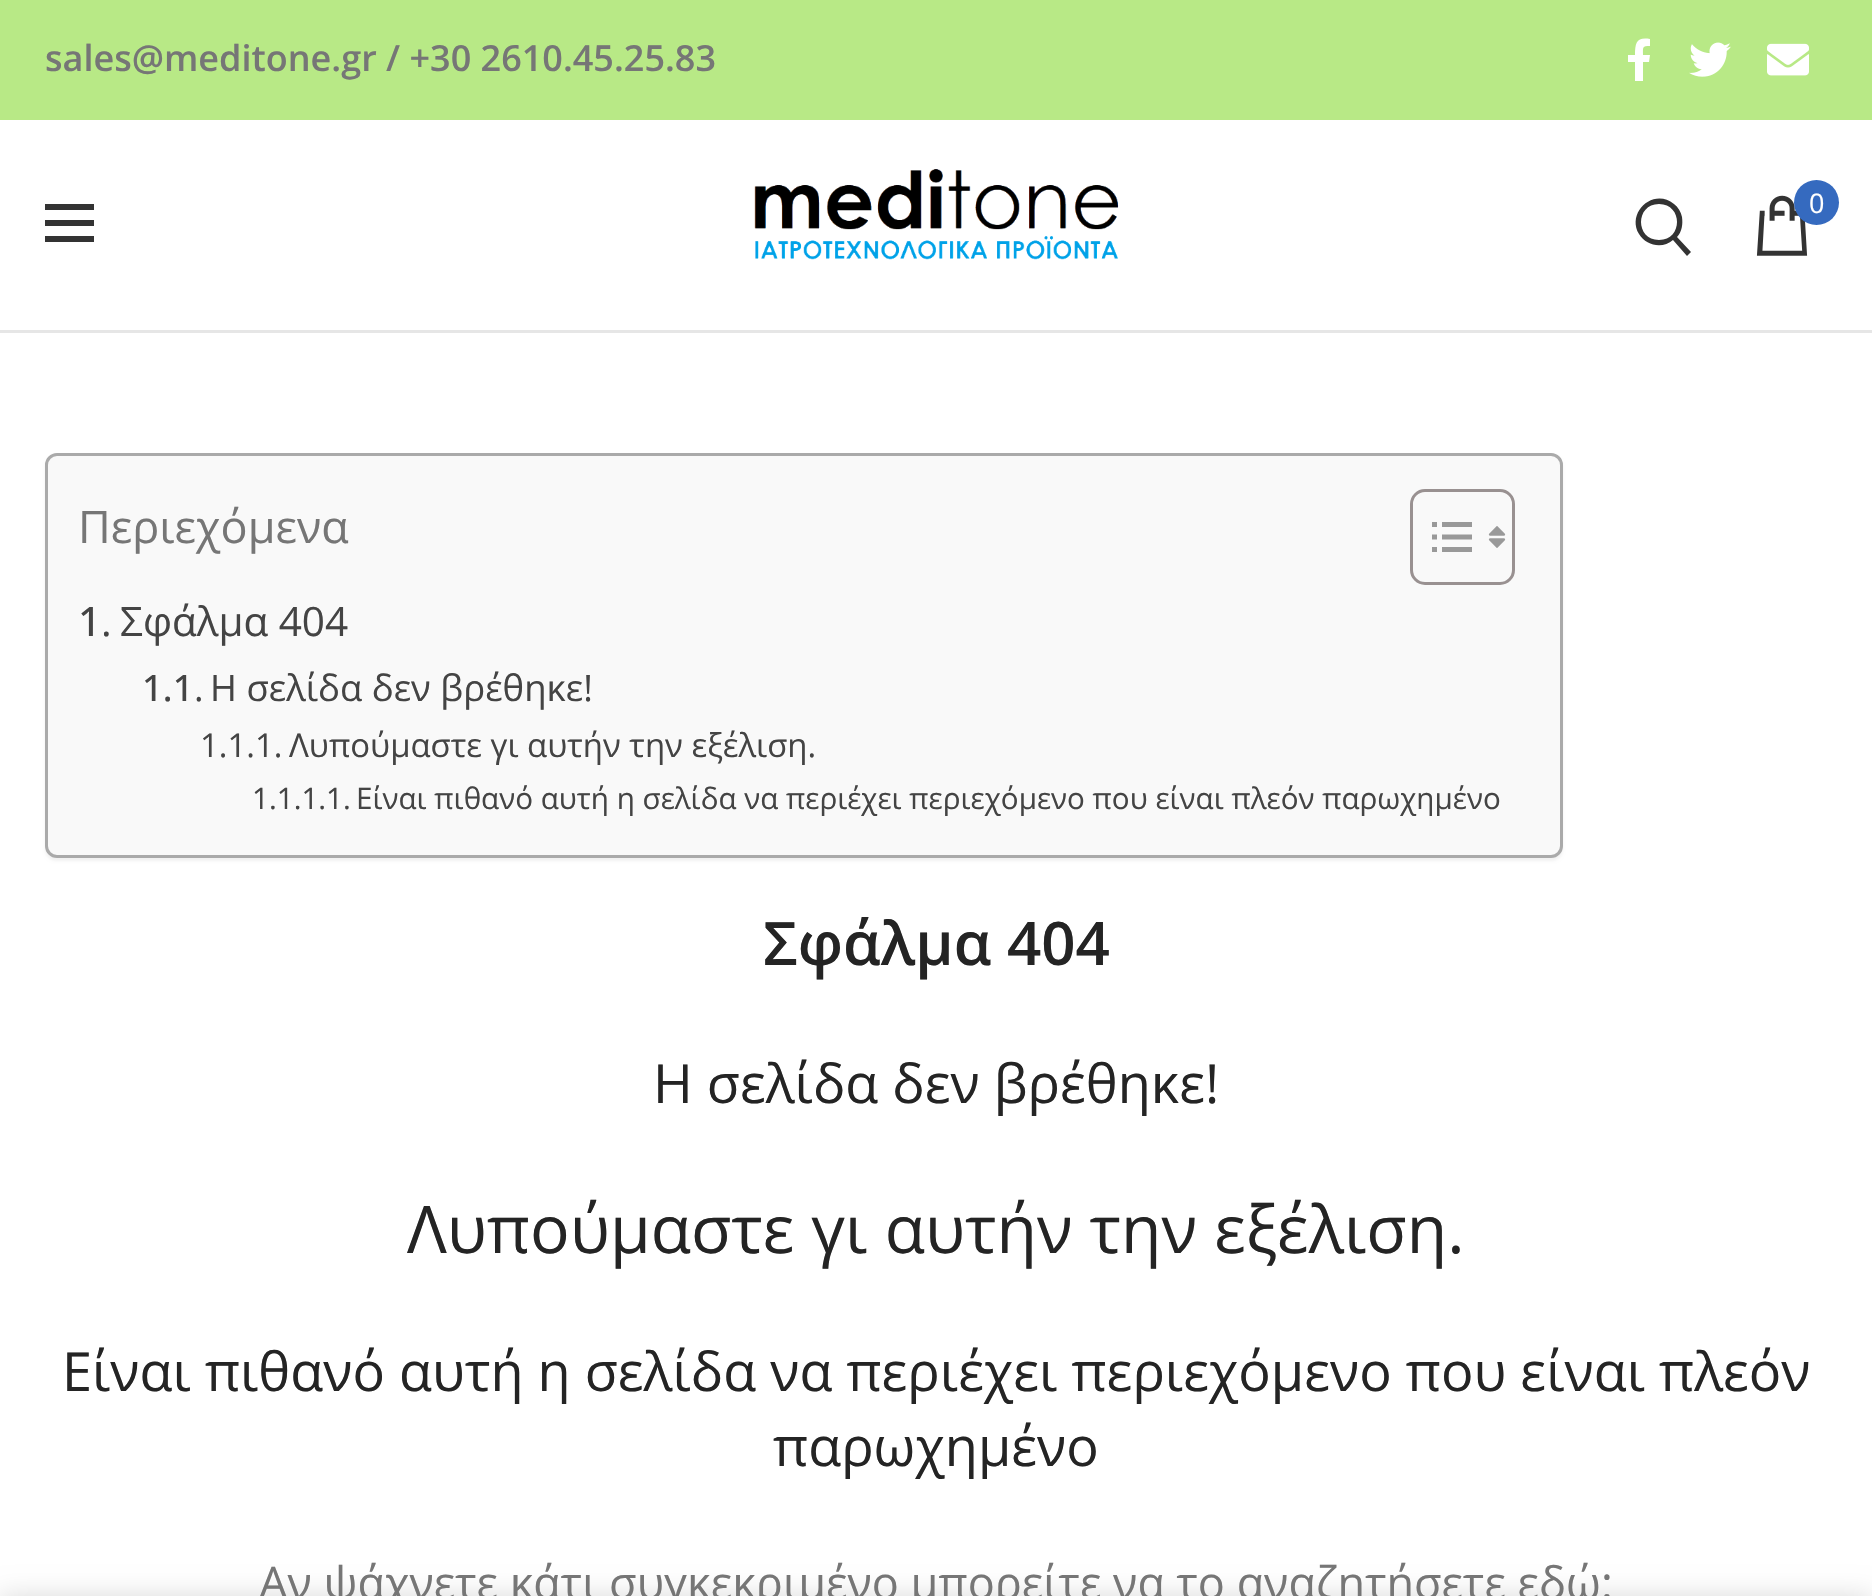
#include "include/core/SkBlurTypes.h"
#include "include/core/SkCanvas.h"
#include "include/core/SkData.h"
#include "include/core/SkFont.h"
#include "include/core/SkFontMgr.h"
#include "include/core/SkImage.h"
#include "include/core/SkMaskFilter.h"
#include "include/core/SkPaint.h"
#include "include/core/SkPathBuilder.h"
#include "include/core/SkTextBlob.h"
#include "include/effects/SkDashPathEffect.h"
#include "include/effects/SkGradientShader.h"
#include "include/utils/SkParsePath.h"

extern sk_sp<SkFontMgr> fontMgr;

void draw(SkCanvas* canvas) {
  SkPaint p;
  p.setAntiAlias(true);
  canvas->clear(SK_ColorWHITE);
  p.setColor(SkColorSetRGB(184, 233, 134));
  canvas->drawRect(SkRect::MakeLTRB(0, 0, 1872, 120), p);
  p.setColor(SK_ColorWHITE);
  canvas->drawPath(SkPathBuilder().moveTo(1649, 62).lineTo(1650, 55).lineTo(1643, 55).cubicTo(1643, 47, 1642, 46, 1650, 46).lineTo(1650, 39).cubicTo(1637, 37, 1635, 42, 1635, 55).lineTo(1628, 55).lineTo(1628, 62).lineTo(1635, 62).lineTo(1635, 81).lineTo(1643, 81).lineTo(1643, 62).close().detach(), p);
  canvas->drawImageRect(SkImages::DeferredFromEncodedData(SkData::MakeFromFileName("images/1.png")), SkRect::MakeLTRB(1689, 42, 1731, 77), SkSamplingOptions());
  canvas->drawImageRect(SkImages::DeferredFromEncodedData(SkData::MakeFromFileName("images/2.png")), SkRect::MakeLTRB(1767, 43, 1809, 76), SkSamplingOptions());
  p.setColor(SkColorSetRGB(230, 230, 230));
  canvas->drawRect(SkRect::MakeLTRB(0, 330, 1872, 333), p);
  p.setColor(SkColorSetRGB(51, 51, 51));
  canvas->drawPath(SkPathBuilder().moveTo(45, 204).lineTo(94, 204).lineTo(94, 210).lineTo(45, 210).close().moveTo(45, 220).lineTo(94, 220).lineTo(94, 226).lineTo(45, 226).close().moveTo(45, 236).lineTo(94, 236).lineTo(94, 242).lineTo(45, 242).close().detach(), p);
  canvas->drawImageRect(SkImages::DeferredFromEncodedData(SkData::MakeFromFileName("images/3.png")), SkRect::MakeLTRB(754, 169, 1119, 260), SkSamplingOptions());
  canvas->drawPath(SkPathBuilder().moveTo(1677, 237).lineTo(1691, 252).lineTo(1687, 256).lineTo(1673, 240).cubicTo(1663, 249, 1646, 246, 1639, 234).cubicTo(1626, 212, 1654, 187, 1674, 204).cubicTo(1678, 207, 1681, 212, 1682, 217).cubicTo(1683, 224, 1682, 232, 1677, 237).close().moveTo(1659, 240).cubicTo(1683, 240, 1683, 204, 1659, 204).cubicTo(1635, 204, 1635, 240, 1659, 240).close().detach(), p);
  canvas->drawImageRect(SkImages::DeferredFromEncodedData(SkData::MakeFromFileName("images/4.png")), SkRect::MakeLTRB(1756, 195, 1808, 256), SkSamplingOptions());
  p.setColor(SkColorSetRGB(53, 106, 191));
  canvas->drawCircle(1816.5f, 202.5f, 22.5f, p);
  p.setColor(SkColorSetARGB(13, 0, 0, 0));
  p.setMaskFilter(SkMaskFilter::MakeBlur(kNormal_SkBlurStyle, 1.5f));
  canvas->drawRoundRect(SkRect::MakeLTRB(45, 456, 1563, 861), 12, 12, p);
  p.setMaskFilter(nullptr);
  p.setColor(SkColorSetRGB(249, 249, 249));
  canvas->drawRoundRect(SkRect::MakeLTRB(46.5f, 454.5f, 1561.5f, 856.5f), 10.5f, 10.5f, p);
  p.setStyle(SkPaint::kStroke_Style);
  p.setStrokeWidth(3);
  p.setColor(SkColorSetRGB(170, 170, 170));
  canvas->drawRoundRect(SkRect::MakeLTRB(46.5f, 454.5f, 1561.5f, 856.5f), 10.5f, 10.5f, p);
  p.setColor(SkColorSetRGB(153, 145, 145));
  canvas->drawRoundRect(SkRect::MakeLTRB(1411.5f, 490.5f, 1513.5f, 583.5f), 13.5f, 13.5f, p);
  canvas->drawImageRect(SkImages::DeferredFromEncodedData(SkData::MakeFromFileName("images/5.png")), SkRect::MakeLTRB(1432, 522, 1472, 552), SkSamplingOptions());
  canvas->drawImageRect(SkImages::DeferredFromEncodedData(SkData::MakeFromFileName("images/6.png")), SkRect::MakeLTRB(1488, 526, 1506, 548), SkSamplingOptions());
  p.setStyle(SkPaint::kFill_Style);
  p.setColor(SkColorSetARGB(36, 0, 0, 0));
  p.setMaskFilter(SkMaskFilter::MakeBlur(kNormal_SkBlurStyle, 13.5f));
  canvas->drawRect(SkRect::MakeLTRB(0, 1596, 1872, 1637), p);
  p.setMaskFilter(nullptr);
  SkFont font1(fontMgr->matchFamilyStyle("Open Sans", SkFontStyle(600, SkFontStyle::kNormal_Width, SkFontStyle::kUpright_Slant)), 36);
  font1.setSubpixel(true);
  p.setColor(SkColorSetRGB(118, 118, 118));
  canvas->drawString("sales@meditone.gr / +30 2610.45.25.83", 45, 71, font1, p);
  SkFont font2(fontMgr->matchFamilyStyle("Open Sans", SkFontStyle::Normal()), 27);
  font2.setSubpixel(true);
  p.setColor(SK_ColorWHITE);
  canvas->drawString("0", 1809, 213, font2, p);
  SkFont font3(fontMgr->matchFamilyStyle("Open Sans", SkFontStyle::Normal()), 45);
  font3.setSubpixel(true);
  p.setColor(SkColorSetRGB(118, 118, 118));
  canvas->drawString("Περιεχόμενα", 78, 543, font3, p);
  SkFont font4(fontMgr->matchFamilyStyle("Open Sans", SkFontStyle(500, SkFontStyle::kNormal_Width, SkFontStyle::kUpright_Slant)), 40.5f);
  font4.setSubpixel(true);
  p.setColor(SkColorSetRGB(68, 68, 68));
  canvas->drawString("1", 78, 636, font4, p);
  SkFont font5(fontMgr->matchFamilyStyle("Open Sans", SkFontStyle::Normal()), 40.5f);
  font5.setSubpixel(true);
  canvas->drawString(".", 101, 636, font5, p);
  canvas->drawString("Σφάλμα 404", 120, 636, font5, p);
  SkFont font6(fontMgr->matchFamilyStyle("Open Sans", SkFontStyle(500, SkFontStyle::kNormal_Width, SkFontStyle::kUpright_Slant)), 36.5f);
  font6.setSubpixel(true);
  canvas->drawString("1.1", 142, 701, font6, p);
  SkFont font7(fontMgr->matchFamilyStyle("Open Sans", SkFontStyle::Normal()), 36.5f);
  font7.setSubpixel(true);
  canvas->drawString(".", 194, 701, font7, p);
  canvas->drawString("Η σελίδα δεν βρέθηκε!", 210, 701, font7, p);
  SkFont font8(fontMgr->matchFamilyStyle("Open Sans", SkFontStyle::Normal()), 32.9f);
  font8.setSubpixel(true);
  canvas->drawString("1.1.1.", 200, 757, font8, p);
  canvas->drawString("Λυπούμαστε γι αυτήν την εξέλιση.", 289, 757, font8, p);
  SkFont font9(fontMgr->matchFamilyStyle("Open Sans", SkFontStyle::Normal()), 29.6f);
  font9.setSubpixel(true);
  canvas->drawString("1.1.1.1.", 252, 809, font9, p);
  canvas->drawString("Είναι πιθανό αυτή η σελίδα να περιέχει περιεχόμενο που είναι πλεόν παρωχημένο", 356, 809, font9, p);
  SkFont font10(fontMgr->matchFamilyStyle("Open Sans", SkFontStyle(600, SkFontStyle::kNormal_Width, SkFontStyle::kUpright_Slant)), 60);
  font10.setSubpixel(true);
  p.setColor(SkColorSetRGB(36, 36, 36));
  canvas->drawString("Σφάλμα 404", 763, 965, font10, p);
  SkFont font11(fontMgr->matchFamilyStyle("Open Sans", SkFontStyle::Normal()), 54);
  font11.setSubpixel(true);
  canvas->drawString("Η σελίδα δεν βρέθηκε!", 653, 1103, font11, p);
  SkFont font12(fontMgr->matchFamilyStyle("Open Sans", SkFontStyle::Normal()), 66);
  font12.setSubpixel(true);
  canvas->drawString("Λυπούμαστε γι αυτήν την εξέλιση.", 407, 1253, font12, p);
  canvas->drawString("Είναι πιθανό αυτή η σελίδα να περιέχει περιεχόμενο που είναι πλεόν", 62, 1391, font11, p);
  canvas->drawString("παρωχημένο", 773, 1466, font11, p);
  p.setColor(SkColorSetRGB(118, 118, 118));
  canvas->drawString("Αν ψάχνετε κάτι συγκεκριμένο μπορείτε να το αναζητήσετε εδώ:", 259, 1599, font3, p);
}
